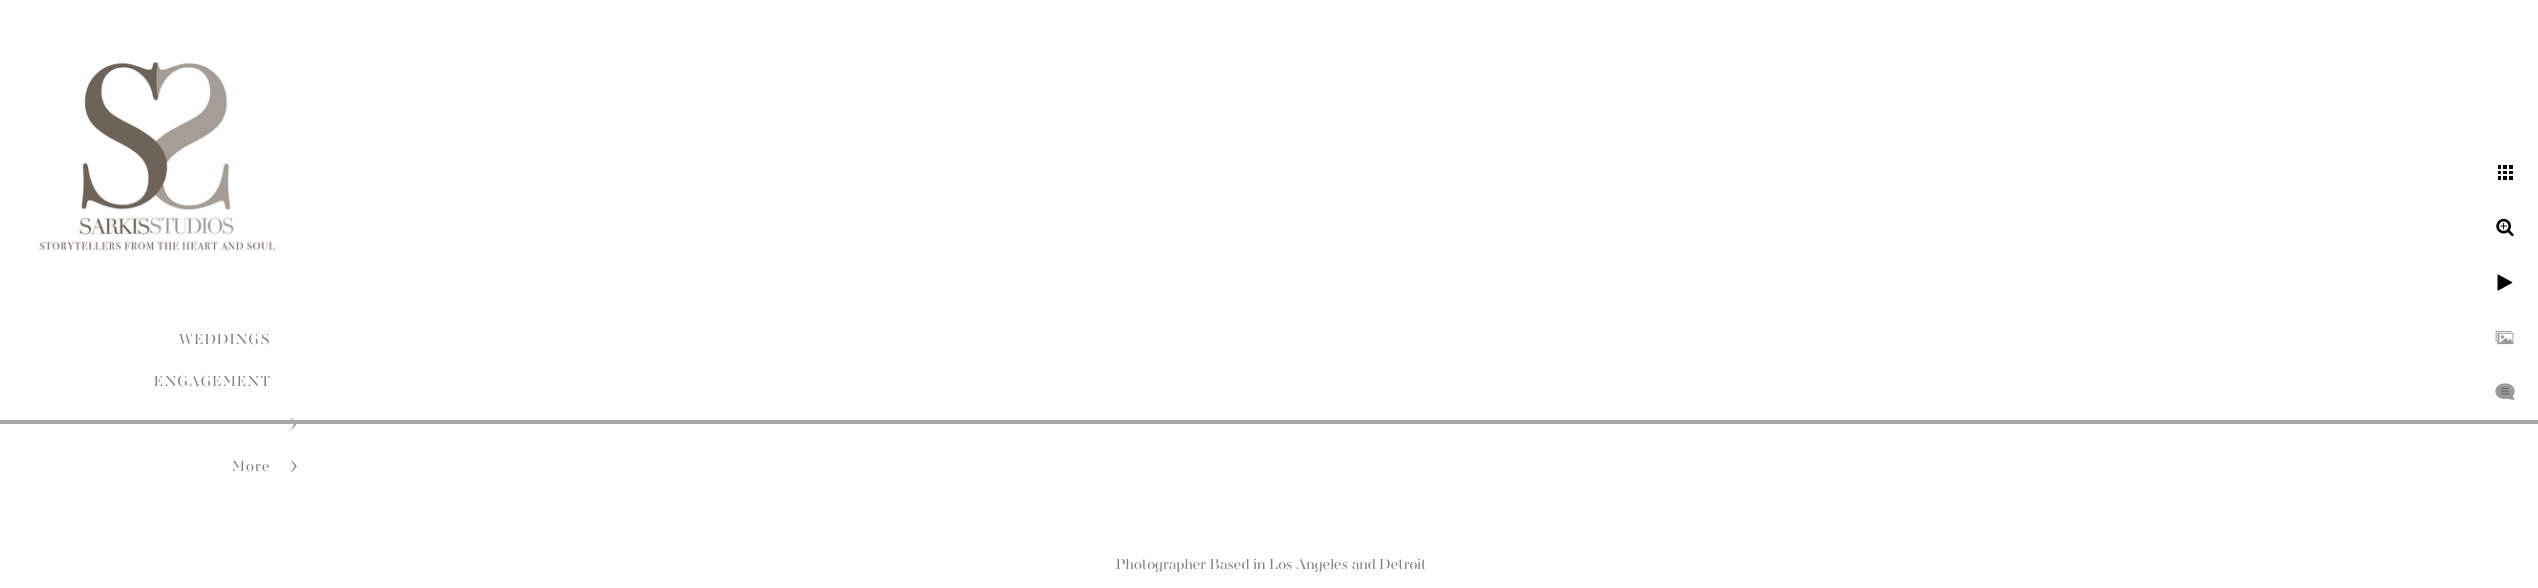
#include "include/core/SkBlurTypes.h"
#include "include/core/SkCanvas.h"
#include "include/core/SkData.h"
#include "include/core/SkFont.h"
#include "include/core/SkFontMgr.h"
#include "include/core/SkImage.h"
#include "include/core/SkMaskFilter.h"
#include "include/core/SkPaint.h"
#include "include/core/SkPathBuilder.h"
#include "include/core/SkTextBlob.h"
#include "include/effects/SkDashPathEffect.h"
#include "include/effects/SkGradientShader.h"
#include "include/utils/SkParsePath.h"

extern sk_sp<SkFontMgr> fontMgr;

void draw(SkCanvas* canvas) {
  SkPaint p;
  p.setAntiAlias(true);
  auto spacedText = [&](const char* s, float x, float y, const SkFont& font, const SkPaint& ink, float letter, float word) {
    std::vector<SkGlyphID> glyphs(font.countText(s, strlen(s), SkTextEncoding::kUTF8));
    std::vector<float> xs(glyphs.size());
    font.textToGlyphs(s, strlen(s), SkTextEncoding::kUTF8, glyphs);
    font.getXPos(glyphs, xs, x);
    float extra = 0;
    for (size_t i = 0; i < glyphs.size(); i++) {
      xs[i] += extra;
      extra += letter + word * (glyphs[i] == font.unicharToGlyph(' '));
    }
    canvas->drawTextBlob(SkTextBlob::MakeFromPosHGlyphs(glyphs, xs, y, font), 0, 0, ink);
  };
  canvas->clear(SK_ColorWHITE);
  canvas->drawImageRect(SkImages::DeferredFromEncodedData(SkData::MakeFromFileName("images/1.png")), SkRect::MakeLTRB(39, 62, 276, 251), SkSamplingOptions());
  canvas->drawImageRect(SkImages::DeferredFromEncodedData(SkData::MakeFromFileName("images/2.png")), SkRect::MakeLTRB(291, 418, 297, 430), SkSamplingOptions());
  canvas->drawImageRect(SkImages::DeferredFromEncodedData(SkData::MakeFromFileName("images/3.png")), SkRect::MakeLTRB(291, 460, 297, 473), SkSamplingOptions());
  canvas->drawImageRect(SkImages::DeferredFromEncodedData(SkData::MakeFromFileName("images/4.png")), SkRect::MakeLTRB(2498, 165, 2513, 180), SkSamplingOptions());
  canvas->drawImageRect(SkImages::DeferredFromEncodedData(SkData::MakeFromFileName("images/5.png")), SkRect::MakeLTRB(2496, 218, 2514, 237), SkSamplingOptions());
  canvas->drawImageRect(SkImages::DeferredFromEncodedData(SkData::MakeFromFileName("images/6.png")), SkRect::MakeLTRB(2497, 274, 2513, 291), SkSamplingOptions());
  canvas->drawImageRect(SkImages::DeferredFromEncodedData(SkData::MakeFromFileName("images/7.png")), SkRect::MakeLTRB(2495, 330, 2514, 345), SkSamplingOptions());
  canvas->drawImageRect(SkImages::DeferredFromEncodedData(SkData::MakeFromFileName("images/8.png")), SkRect::MakeLTRB(2495, 383, 2515, 401), SkSamplingOptions());
  p.setColor(SkColorSetRGB(169, 169, 169));
  canvas->drawRect(SkRect::MakeLTRB(0, 420, 2538, 424), p);
  SkFont font1(fontMgr->matchFamilyStyle("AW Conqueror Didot", SkFontStyle(300, SkFontStyle::kNormal_Width, SkFontStyle::kUpright_Slant)), 15);
  font1.setSubpixel(true);
  p.setColor(SkColorSetRGB(128, 128, 128));
  spacedText("WEDDINGS", 179, 344, font1, p, 1.25f, 0);
  spacedText("ENGAGEMENT", 154, 386, font1, p, 1.25f, 0);
  spacedText("More", 232, 471, font1, p, 1.25f, 0);
  canvas->drawString("Photographer Based in Los Angeles and Detroit", 1116, 569, font1, p);
}
